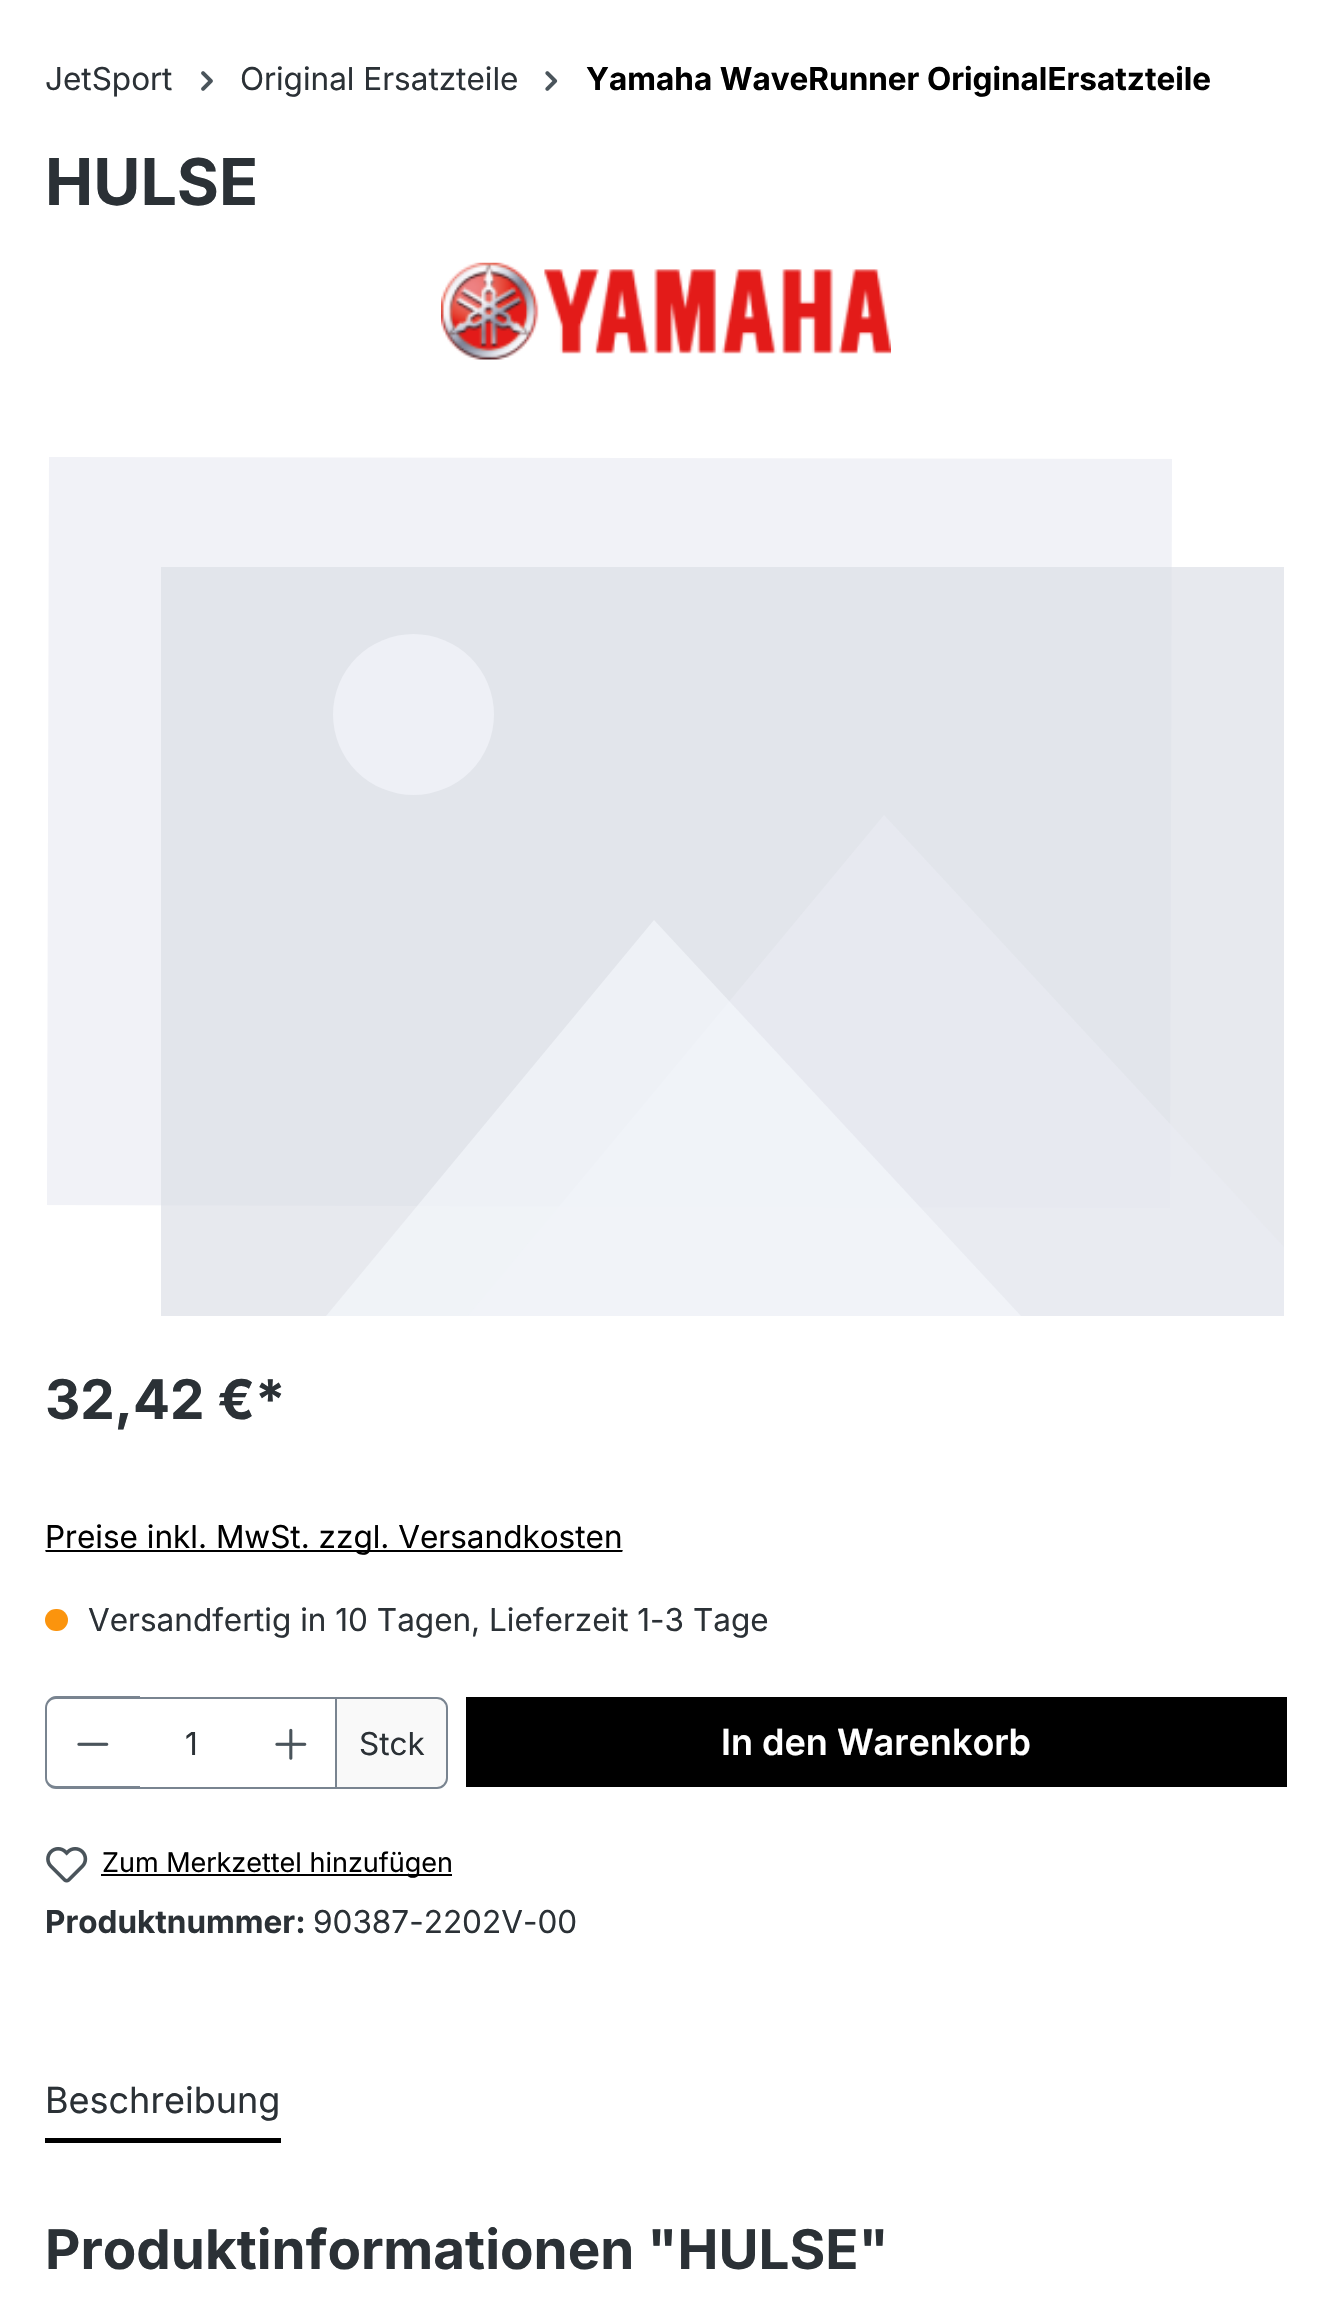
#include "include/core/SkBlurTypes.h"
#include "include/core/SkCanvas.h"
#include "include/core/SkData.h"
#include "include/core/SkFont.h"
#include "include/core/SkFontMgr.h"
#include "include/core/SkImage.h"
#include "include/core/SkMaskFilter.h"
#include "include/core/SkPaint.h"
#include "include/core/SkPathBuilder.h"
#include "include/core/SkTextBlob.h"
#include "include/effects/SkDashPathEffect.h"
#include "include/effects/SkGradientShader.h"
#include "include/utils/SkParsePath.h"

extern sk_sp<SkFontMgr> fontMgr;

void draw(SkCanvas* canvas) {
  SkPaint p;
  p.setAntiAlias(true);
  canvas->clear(SK_ColorWHITE);
  canvas->drawImageRect(SkImages::DeferredFromEncodedData(SkData::MakeFromFileName("images/1.png")), SkRect::MakeLTRB(201, 71, 213, 91), SkSamplingOptions());
  canvas->drawImageRect(SkImages::DeferredFromEncodedData(SkData::MakeFromFileName("images/2.png")), SkRect::MakeLTRB(545, 71, 558, 91), SkSamplingOptions());
  canvas->drawImageRect(SkImages::DeferredFromEncodedData(SkData::MakeFromFileName("images/3.png")), SkRect::MakeLTRB(441, 262, 891, 360), SkSamplingOptions());
  p.setColor(SkColorSetRGB(241, 242, 247));
  canvas->drawPath(SkPathBuilder().moveTo(47, 1205).lineTo(49, 457).lineTo(1172, 459).lineTo(1170, 1208).close().detach(), p);
  p.setColor(SkColorSetARGB(166, 218, 221, 229));
  canvas->drawRect(SkRect::MakeLTRB(161, 567, 1284, 1316), p);
  p.setColor(SkColorSetARGB(166, 233, 235, 242));
  canvas->drawPath(SkPathBuilder(SkPathFillType::kEvenOdd).moveTo(468, 1316).lineTo(1284, 1316).lineTo(1284, 1247).lineTo(884, 815).close().detach(), p);
  p.setColor(SkColorSetRGB(238, 240, 246));
  canvas->drawCircle(413.5f, 714.5f, 80.5f, p);
  p.setColor(SkColorSetARGB(166, 245, 247, 252));
  canvas->drawPath(SkPathBuilder(SkPathFillType::kEvenOdd).moveTo(654, 920).lineTo(326, 1316).lineTo(1021, 1316).close().detach(), p);
  canvas->save();
  canvas->clipPath(SkPathBuilder().moveTo(56, 1512).lineTo(612, 1512).cubicTo(618, 1512, 623, 1517, 623, 1523).lineTo(623, 1548).cubicTo(623, 1554, 618, 1559, 612, 1559).lineTo(56, 1559).cubicTo(50, 1559, 45, 1554, 45, 1548).lineTo(45, 1523).cubicTo(45, 1517, 50, 1512, 56, 1512).close().detach(), true);
  p.setColor(SK_ColorBLACK);
  canvas->drawRect(SkRect::MakeLTRB(45, 1550, 623, 1552), p);
  canvas->restore();
  p.setColor(SkColorSetRGB(251, 148, 13));
  canvas->drawRoundRect(SkRect::MakeLTRB(45, 1609, 68, 1631), 11, 11, p);
  p.setColor(SkColorSetRGB(249, 249, 249));
  canvas->drawPath(SkPathBuilder().moveTo(336, 1698).lineTo(437, 1698).cubicTo(442.5f, 1698, 447, 1702.5f, 447, 1708).lineTo(447, 1778).cubicTo(447, 1783.5f, 442.5f, 1788, 437, 1788).lineTo(336, 1788).close().detach(), p);
  p.setStyle(SkPaint::kStroke_Style);
  p.setStrokeWidth(2);
  p.setColor(SkColorSetRGB(121, 132, 144));
  canvas->drawPath(SkPathBuilder().moveTo(336, 1698).lineTo(437, 1698).cubicTo(442.5f, 1698, 447, 1702.5f, 447, 1708).lineTo(447, 1778).cubicTo(447, 1783.5f, 442.5f, 1788, 437, 1788).lineTo(336, 1788).close().detach(), p);
  p.setStyle(SkPaint::kFill_Style);
  canvas->drawRect(SkRect::MakeLTRB(137, 1697, 338, 1699), p);
  canvas->drawRect(SkRect::MakeLTRB(137, 1787, 338, 1789), p);
  canvas->drawPath(SkPathBuilder(SkPathFillType::kEvenOdd).moveTo(56, 1696).lineTo(140, 1696).lineTo(140, 1789).lineTo(56, 1789).cubicTo(50, 1789, 45, 1784, 45, 1778).lineTo(45, 1708).cubicTo(45, 1702, 50, 1696, 56, 1696).close().moveTo(56, 1699).lineTo(140, 1699).lineTo(140, 1786).lineTo(56, 1786).cubicTo(51, 1786, 47, 1782, 47, 1778).lineTo(47, 1708).cubicTo(47, 1703, 51, 1699, 56, 1699).close().detach(), p);
  canvas->drawImageRect(SkImages::DeferredFromEncodedData(SkData::MakeFromFileName("images/4.png")), SkRect::MakeLTRB(77, 1742, 109, 1746), SkSamplingOptions());
  canvas->drawImageRect(SkImages::DeferredFromEncodedData(SkData::MakeFromFileName("images/5.png")), SkRect::MakeLTRB(275, 1728, 307, 1760), SkSamplingOptions());
  p.setColor(SK_ColorBLACK);
  canvas->drawRect(SkRect::MakeLTRB(466, 1697, 1287, 1787), p);
  canvas->drawImageRect(SkImages::DeferredFromEncodedData(SkData::MakeFromFileName("images/6.png")), SkRect::MakeLTRB(46, 1847, 88, 1883), SkSamplingOptions());
  canvas->drawRect(SkRect::MakeLTRB(101, 1874, 452, 1876), p);
  canvas->drawRect(SkRect::MakeLTRB(45, 2138, 281, 2143), p);
  SkFont font1(fontMgr->matchFamilyStyle("Inter", SkFontStyle::Normal()), 31.5f);
  font1.setSubpixel(true);
  p.setColor(SkColorSetRGB(43, 49, 54));
  canvas->drawString("JetSport", 45, 90, font1, p);
  canvas->drawString("Original Ersatzteile", 240, 90, font1, p);
  SkFont font2(fontMgr->matchFamilyStyle("Inter", SkFontStyle::Bold()), 31.5f);
  font2.setSubpixel(true);
  p.setColor(SK_ColorBLACK);
  canvas->drawString("Yamaha WaveRunner OriginalErsatzteile", 586, 90, font2, p);
  SkFont font3(fontMgr->matchFamilyStyle("Inter", SkFontStyle::Bold()), 64.5f);
  font3.setSubpixel(true);
  p.setColor(SkColorSetRGB(43, 49, 54));
  canvas->drawString("HULSE", 45, 205, font3, p);
  SkFont font4(fontMgr->matchFamilyStyle("Inter", SkFontStyle::Bold()), 54.75f);
  font4.setSubpixel(true);
  canvas->drawString("32,42 €*", 45, 1419, font4, p);
  p.setColor(SK_ColorBLACK);
  canvas->drawString("Preise inkl. MwSt. zzgl. Versandkosten", 45, 1548, font1, p);
  p.setColor(SkColorSetRGB(43, 49, 54));
  canvas->drawString("Versandfertig in 10 Tagen, Lieferzeit 1-3 Tage", 88, 1631, font1, p);
  canvas->drawString("1", 185, 1755, font1, p);
  canvas->drawString("Stck", 359, 1755, font1, p);
  SkFont font5(fontMgr->matchFamilyStyle("Inter", SkFontStyle(600, SkFontStyle::kNormal_Width, SkFontStyle::kUpright_Slant)), 36);
  font5.setSubpixel(true);
  p.setColor(SK_ColorWHITE);
  canvas->drawString("In den Warenkorb", 721, 1755, font5, p);
  SkFont font6(fontMgr->matchFamilyStyle("Inter", SkFontStyle::Normal()), 27);
  font6.setSubpixel(true);
  p.setColor(SK_ColorBLACK);
  canvas->drawString("Zum Merkzettel hinzufügen", 102, 1872, font6, p);
  p.setColor(SkColorSetRGB(43, 49, 54));
  canvas->drawString("Produktnummer:", 45, 1933, font2, p);
  canvas->drawString("90387-2202V-00", 313, 1933, font1, p);
  SkFont font7(fontMgr->matchFamilyStyle("Inter", SkFontStyle::Normal()), 36);
  font7.setSubpixel(true);
  canvas->drawString("Beschreibung", 45, 2113, font7, p);
  canvas->drawString("Produktinformationen \"HULSE\"", 45, 2269, font4, p);
}
